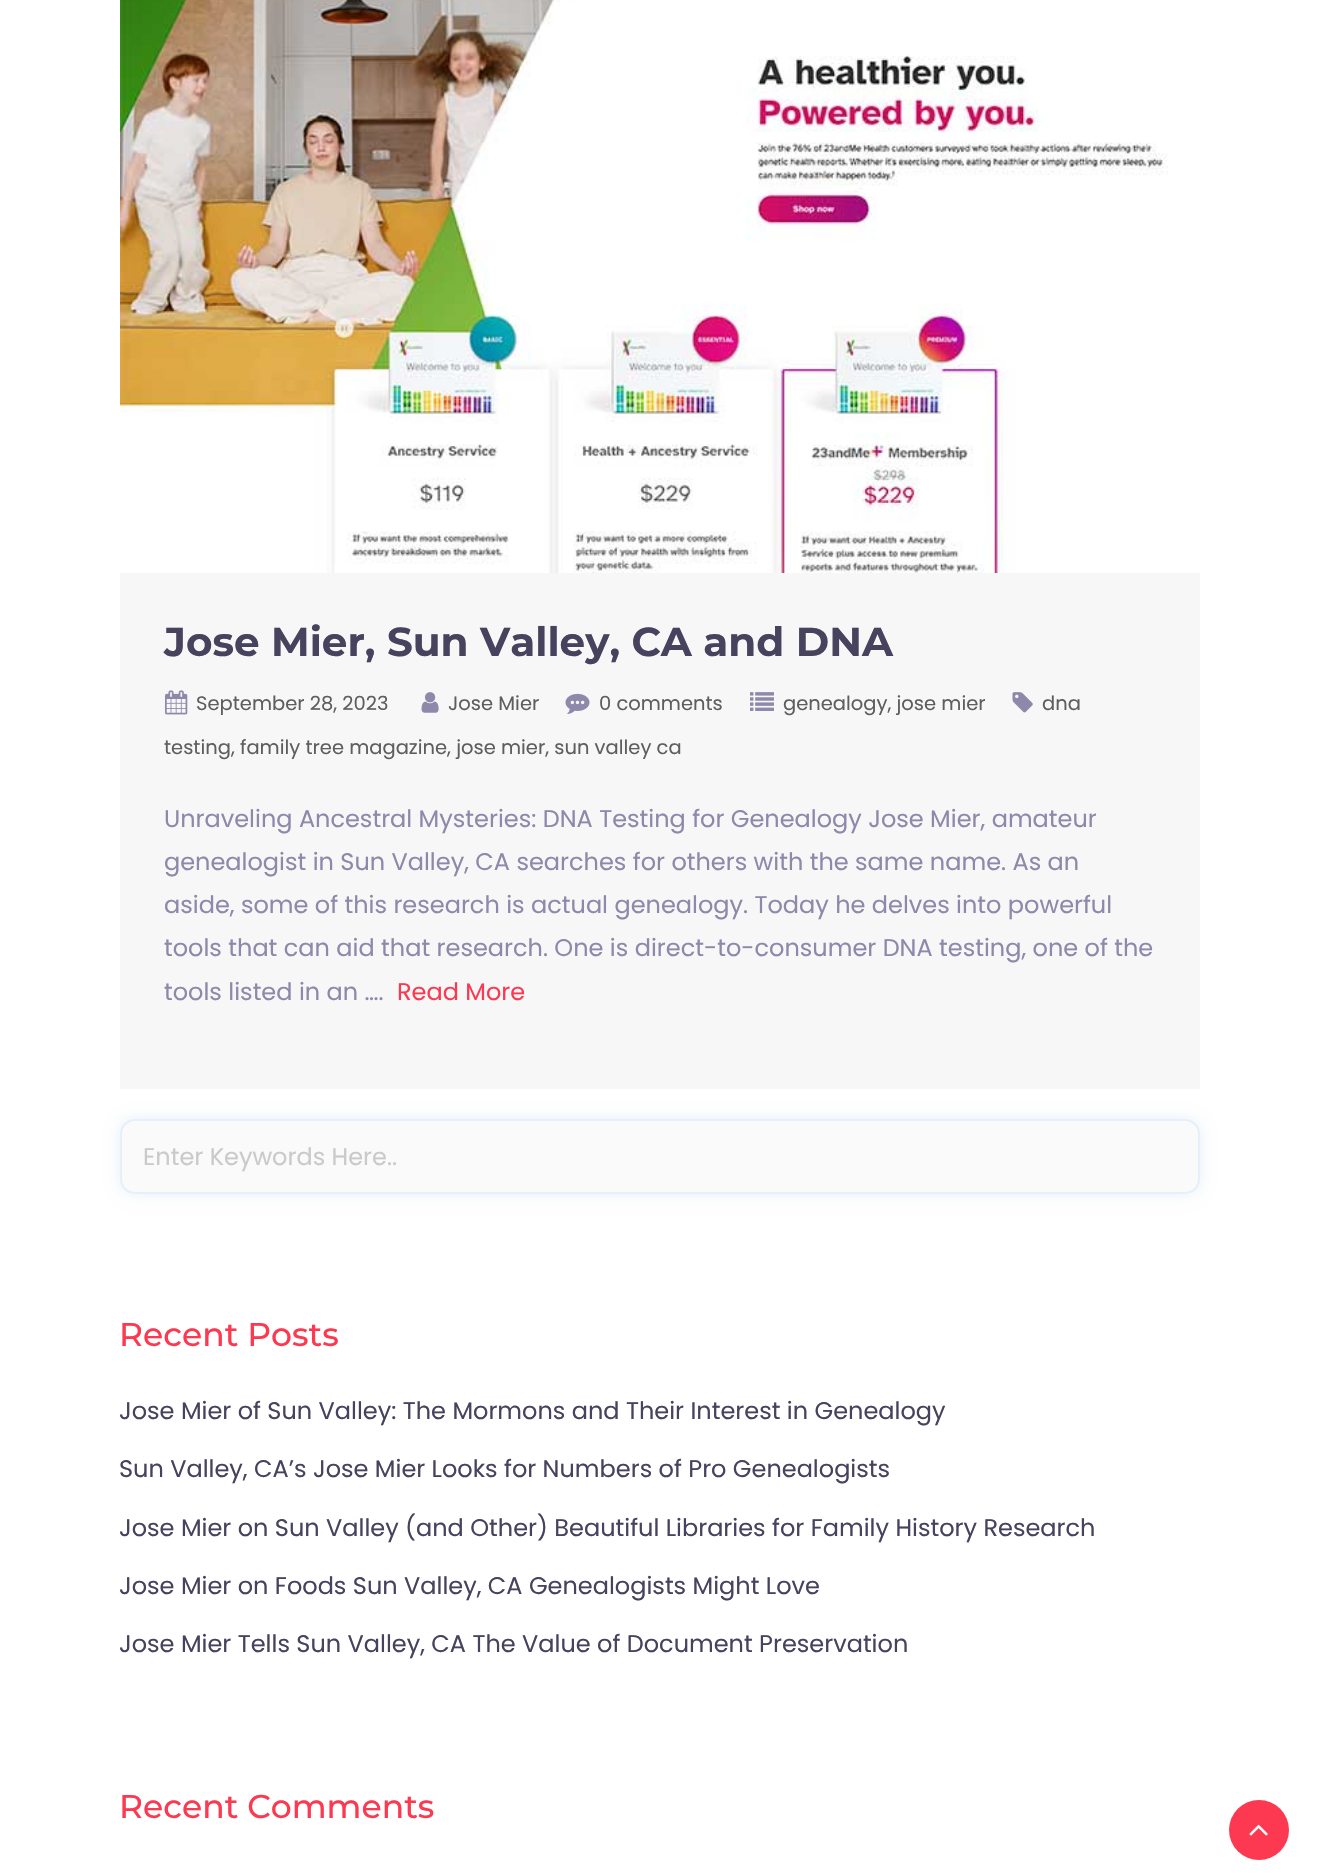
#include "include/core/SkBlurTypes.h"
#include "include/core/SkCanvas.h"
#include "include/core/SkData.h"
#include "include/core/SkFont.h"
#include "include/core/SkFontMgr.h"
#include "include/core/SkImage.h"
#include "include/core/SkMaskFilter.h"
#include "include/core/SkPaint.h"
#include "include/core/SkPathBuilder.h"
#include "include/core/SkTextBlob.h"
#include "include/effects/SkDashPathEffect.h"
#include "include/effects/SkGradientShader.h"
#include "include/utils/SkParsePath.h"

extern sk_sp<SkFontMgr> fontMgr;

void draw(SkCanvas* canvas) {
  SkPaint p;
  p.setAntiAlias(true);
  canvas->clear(SK_ColorWHITE);
  canvas->drawImageRect(SkImages::DeferredFromEncodedData(SkData::MakeFromFileName("images/1.png")), SkRect::MakeLTRB(120, 0, 1168, 573), SkSamplingOptions());
  p.setColor(SkColorSetRGB(247, 247, 247));
  canvas->drawRect(SkRect::MakeLTRB(120, 573, 1200, 1089), p);
  canvas->drawImageRect(SkImages::DeferredFromEncodedData(SkData::MakeFromFileName("images/2.png")), SkRect::MakeLTRB(565, 693, 590, 714), SkSamplingOptions());
  canvas->drawImageRect(SkImages::DeferredFromEncodedData(SkData::MakeFromFileName("images/3.png")), SkRect::MakeLTRB(1012, 692, 1033, 713), SkSamplingOptions());
  canvas->drawImageRect(SkImages::DeferredFromEncodedData(SkData::MakeFromFileName("images/4.png")), SkRect::MakeLTRB(165, 690, 188, 715), SkSamplingOptions());
  canvas->drawImageRect(SkImages::DeferredFromEncodedData(SkData::MakeFromFileName("images/5.png")), SkRect::MakeLTRB(421, 692, 439, 713), SkSamplingOptions());
  canvas->drawImageRect(SkImages::DeferredFromEncodedData(SkData::MakeFromFileName("images/6.png")), SkRect::MakeLTRB(750, 692, 774, 711), SkSamplingOptions());
  p.setColor(SkColorSetRGB(230, 240, 250));
  p.setMaskFilter(SkMaskFilter::MakeBlur(kNormal_SkBlurStyle, 7.5f));
  canvas->drawRoundRect(SkRect::MakeLTRB(120, 1119, 1200, 1194), 15, 15, p);
  p.setMaskFilter(nullptr);
  p.setColor(SkColorSetRGB(250, 250, 250));
  canvas->drawRoundRect(SkRect::MakeLTRB(121, 1120, 1199, 1193), 14, 14, p);
  p.setStyle(SkPaint::kStroke_Style);
  p.setStrokeWidth(2);
  p.setColor(SkColorSetRGB(230, 240, 250));
  canvas->drawRoundRect(SkRect::MakeLTRB(121, 1120, 1199, 1193), 14, 14, p);
  p.setStyle(SkPaint::kFill_Style);
  p.setColor(SkColorSetRGB(252, 57, 80));
  canvas->drawCircle(1259, 1830, 30, p);
  canvas->drawImageRect(SkImages::DeferredFromEncodedData(SkData::MakeFromFileName("images/7.png")), SkRect::MakeLTRB(1249, 1824, 1268, 1836), SkSamplingOptions());
  SkFont font1(fontMgr->matchFamilyStyle("Montserrat", SkFontStyle::Bold()), 40.5f);
  font1.setSubpixel(true);
  p.setColor(SkColorSetRGB(71, 66, 93));
  canvas->drawString("Jose Mier, Sun Valley, CA and DNA", 164, 656, font1, p);
  SkFont font2(fontMgr->matchFamilyStyle("Poppins", SkFontStyle::Normal()), 19.5f);
  font2.setSubpixel(true);
  p.setColor(SkColorSetRGB(94, 94, 94));
  canvas->drawString("dna", 1042, 710, font2, p);
  canvas->drawString("testing, family tree magazine, jose mier, sun valley ca", 164, 754, font2, p);
  canvas->drawString("September 28, 2023", 196, 710, font2, p);
  canvas->drawString("Jose Mier", 448, 710, font2, p);
  canvas->drawString("0 comments", 599, 710, font2, p);
  canvas->drawString("genealogy, jose mier", 783, 710, font2, p);
  SkFont font3(fontMgr->matchFamilyStyle("Poppins", SkFontStyle::Normal()), 24);
  font3.setSubpixel(true);
  p.setColor(SkColorSetRGB(142, 136, 170));
  canvas->drawString("Unraveling Ancestral Mysteries: DNA Testing for Genealogy Jose Mier, amateur", 164, 827, font3, p);
  canvas->drawString("genealogist in Sun Valley, CA searches for others with the same name. As an", 164, 870, font3, p);
  canvas->drawString("aside, some of this research is actual genealogy. Today he delves into powerful", 164, 913, font3, p);
  canvas->drawString("tools that can aid that research. One is direct-to-consumer DNA testing, one of the", 164, 956, font3, p);
  canvas->drawString("tools listed in an ….", 164, 1000, font3, p);
  p.setColor(SkColorSetRGB(252, 57, 80));
  canvas->drawString("Read More", 397, 1000, font3, p);
  p.setColor(SkColorSetRGB(202, 202, 202));
  canvas->drawString("Enter Keywords Here..", 143, 1165, font3, p);
  SkFont font4(fontMgr->matchFamilyStyle("Montserrat", SkFontStyle(500, SkFontStyle::kNormal_Width, SkFontStyle::kUpright_Slant)), 33);
  font4.setSubpixel(true);
  p.setColor(SkColorSetRGB(252, 57, 80));
  canvas->drawString("Recent Posts", 119, 1346, font4, p);
  p.setColor(SkColorSetRGB(71, 66, 93));
  canvas->drawString("Jose Mier of Sun Valley: The Mormons and Their Interest in Genealogy", 119, 1419, font3, p);
  canvas->drawString("Sun Valley, CA’s Jose Mier Looks for Numbers of Pro Genealogists", 119, 1477, font3, p);
  canvas->drawString("Jose Mier on Sun Valley (and Other) Beautiful Libraries for Family History Research", 119, 1536, font3, p);
  canvas->drawString("Jose Mier on Foods Sun Valley, CA Genealogists Might Love", 119, 1594, font3, p);
  canvas->drawString("Jose Mier Tells Sun Valley, CA The Value of Document Preservation", 119, 1652, font3, p);
  p.setColor(SkColorSetRGB(252, 57, 80));
  canvas->drawString("Recent Comments", 119, 1818, font4, p);
}
